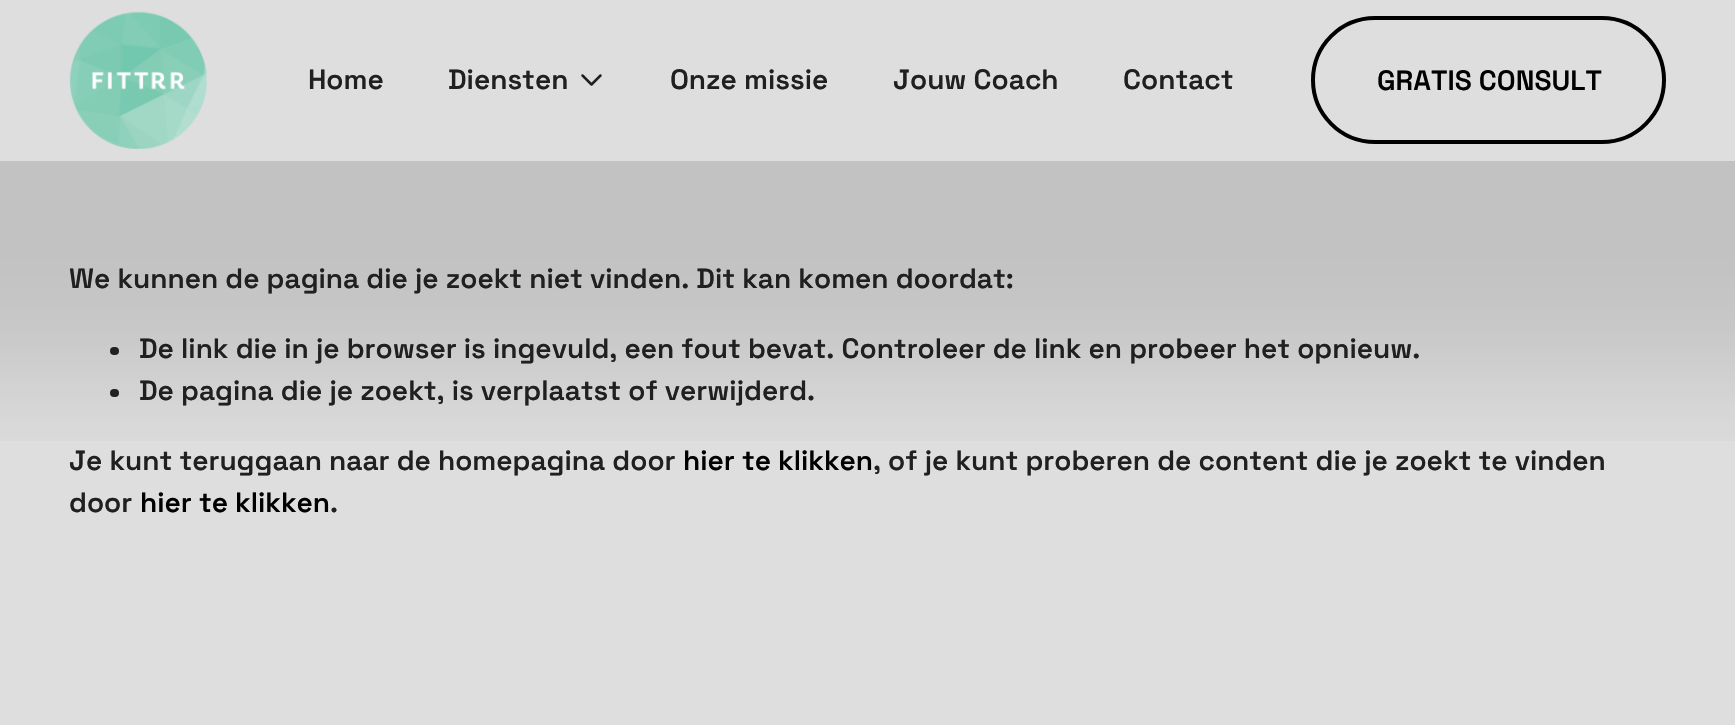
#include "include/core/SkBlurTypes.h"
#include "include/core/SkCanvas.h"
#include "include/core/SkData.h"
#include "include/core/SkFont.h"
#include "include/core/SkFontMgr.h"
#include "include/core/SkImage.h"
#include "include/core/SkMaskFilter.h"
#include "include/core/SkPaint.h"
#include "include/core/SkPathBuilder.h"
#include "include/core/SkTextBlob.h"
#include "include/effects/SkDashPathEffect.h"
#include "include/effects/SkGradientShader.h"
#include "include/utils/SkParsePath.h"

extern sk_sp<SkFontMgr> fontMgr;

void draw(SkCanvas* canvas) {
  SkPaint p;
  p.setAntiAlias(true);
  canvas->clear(SkColorSetRGB(222, 222, 222));
  p.setColor(SkColorSetRGB(33, 32, 32));
  canvas->drawRoundRect(SkRect::MakeLTRB(110, 347, 119, 355), 4, 4, p);
  canvas->drawRoundRect(SkRect::MakeLTRB(110, 389, 119, 397), 4, 4, p);
  canvas->save();
  canvas->clipRect(SkRect::MakeLTRB(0, 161, 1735, 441));
  p.setColor(SkColorSetARGB(38, 33, 32, 32));
  p.setMaskFilter(SkMaskFilter::MakeBlur(kNormal_SkBlurStyle, 59.5f));
  canvas->drawRect(SkRect::MakeLTRB(-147, -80, 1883, 375), p);
  p.setMaskFilter(nullptr);
  canvas->restore();
  canvas->drawImageRect(SkImages::DeferredFromEncodedData(SkData::MakeFromFileName("images/1.png")), SkRect::MakeLTRB(69, 11, 207, 149), SkSamplingOptions());
  p.setStyle(SkPaint::kStroke_Style);
  p.setStrokeWidth(2.5f);
  p.setStrokeCap(SkPaint::kRound_Cap);
  p.setStrokeJoin(SkPaint::kRound_Join);
  p.setColor(SkColorSetRGB(33, 32, 32));
  canvas->drawPath(SkPathBuilder().moveTo(600.5f, 75.5f).lineTo(591.5f, 84.5f).lineTo(582.5f, 75.5f).detach(), p);
  p.setStrokeWidth(4);
  p.setStrokeCap(SkPaint::kButt_Cap);
  p.setStrokeJoin(SkPaint::kMiter_Join);
  p.setColor(SK_ColorBLACK);
  canvas->drawRoundRect(SkRect::MakeLTRB(1313, 18, 1664, 142), 62, 62, p);
  SkFont font1(fontMgr->matchFamilyStyle("Space Grotesk", SkFontStyle(600, SkFontStyle::kNormal_Width, SkFontStyle::kUpright_Slant)), 28);
  font1.setSubpixel(true);
  p.setStyle(SkPaint::kFill_Style);
  p.setColor(SkColorSetRGB(33, 32, 32));
  canvas->drawString("Home", 308, 89, font1, p);
  canvas->drawString("Diensten", 448, 89, font1, p);
  canvas->drawString("Onze missie", 670, 89, font1, p);
  canvas->drawString("Jouw Coach", 893, 89, font1, p);
  canvas->drawString("Contact", 1123, 89, font1, p);
  p.setColor(SK_ColorBLACK);
  canvas->drawString("GRATIS CONSULT", 1377, 90, font1, p);
  p.setColor(SkColorSetRGB(33, 32, 32));
  canvas->drawString("We kunnen de pagina die je zoekt niet vinden. Dit kan komen doordat:", 69, 288, font1, p);
  canvas->drawString("De link die in je browser is ingevuld, een fout bevat. Controleer de link en probeer het opnieuw.", 139, 358, font1, p);
  canvas->drawString("De pagina die je zoekt, is verplaatst of verwijderd.", 139, 400, font1, p);
  canvas->drawString("Je kunt teruggaan naar de homepagina door", 69, 470, font1, p);
  p.setColor(SK_ColorBLACK);
  canvas->drawString("hier te klikken", 683, 470, font1, p);
  p.setColor(SkColorSetRGB(33, 32, 32));
  canvas->drawString(", of je kunt proberen de content die je zoekt te vinden", 873, 470, font1, p);
  canvas->drawString("door", 69, 512, font1, p);
  p.setColor(SK_ColorBLACK);
  canvas->drawString("hier te klikken", 140, 512, font1, p);
  p.setColor(SkColorSetRGB(33, 32, 32));
  canvas->drawString(".", 330, 512, font1, p);
}
